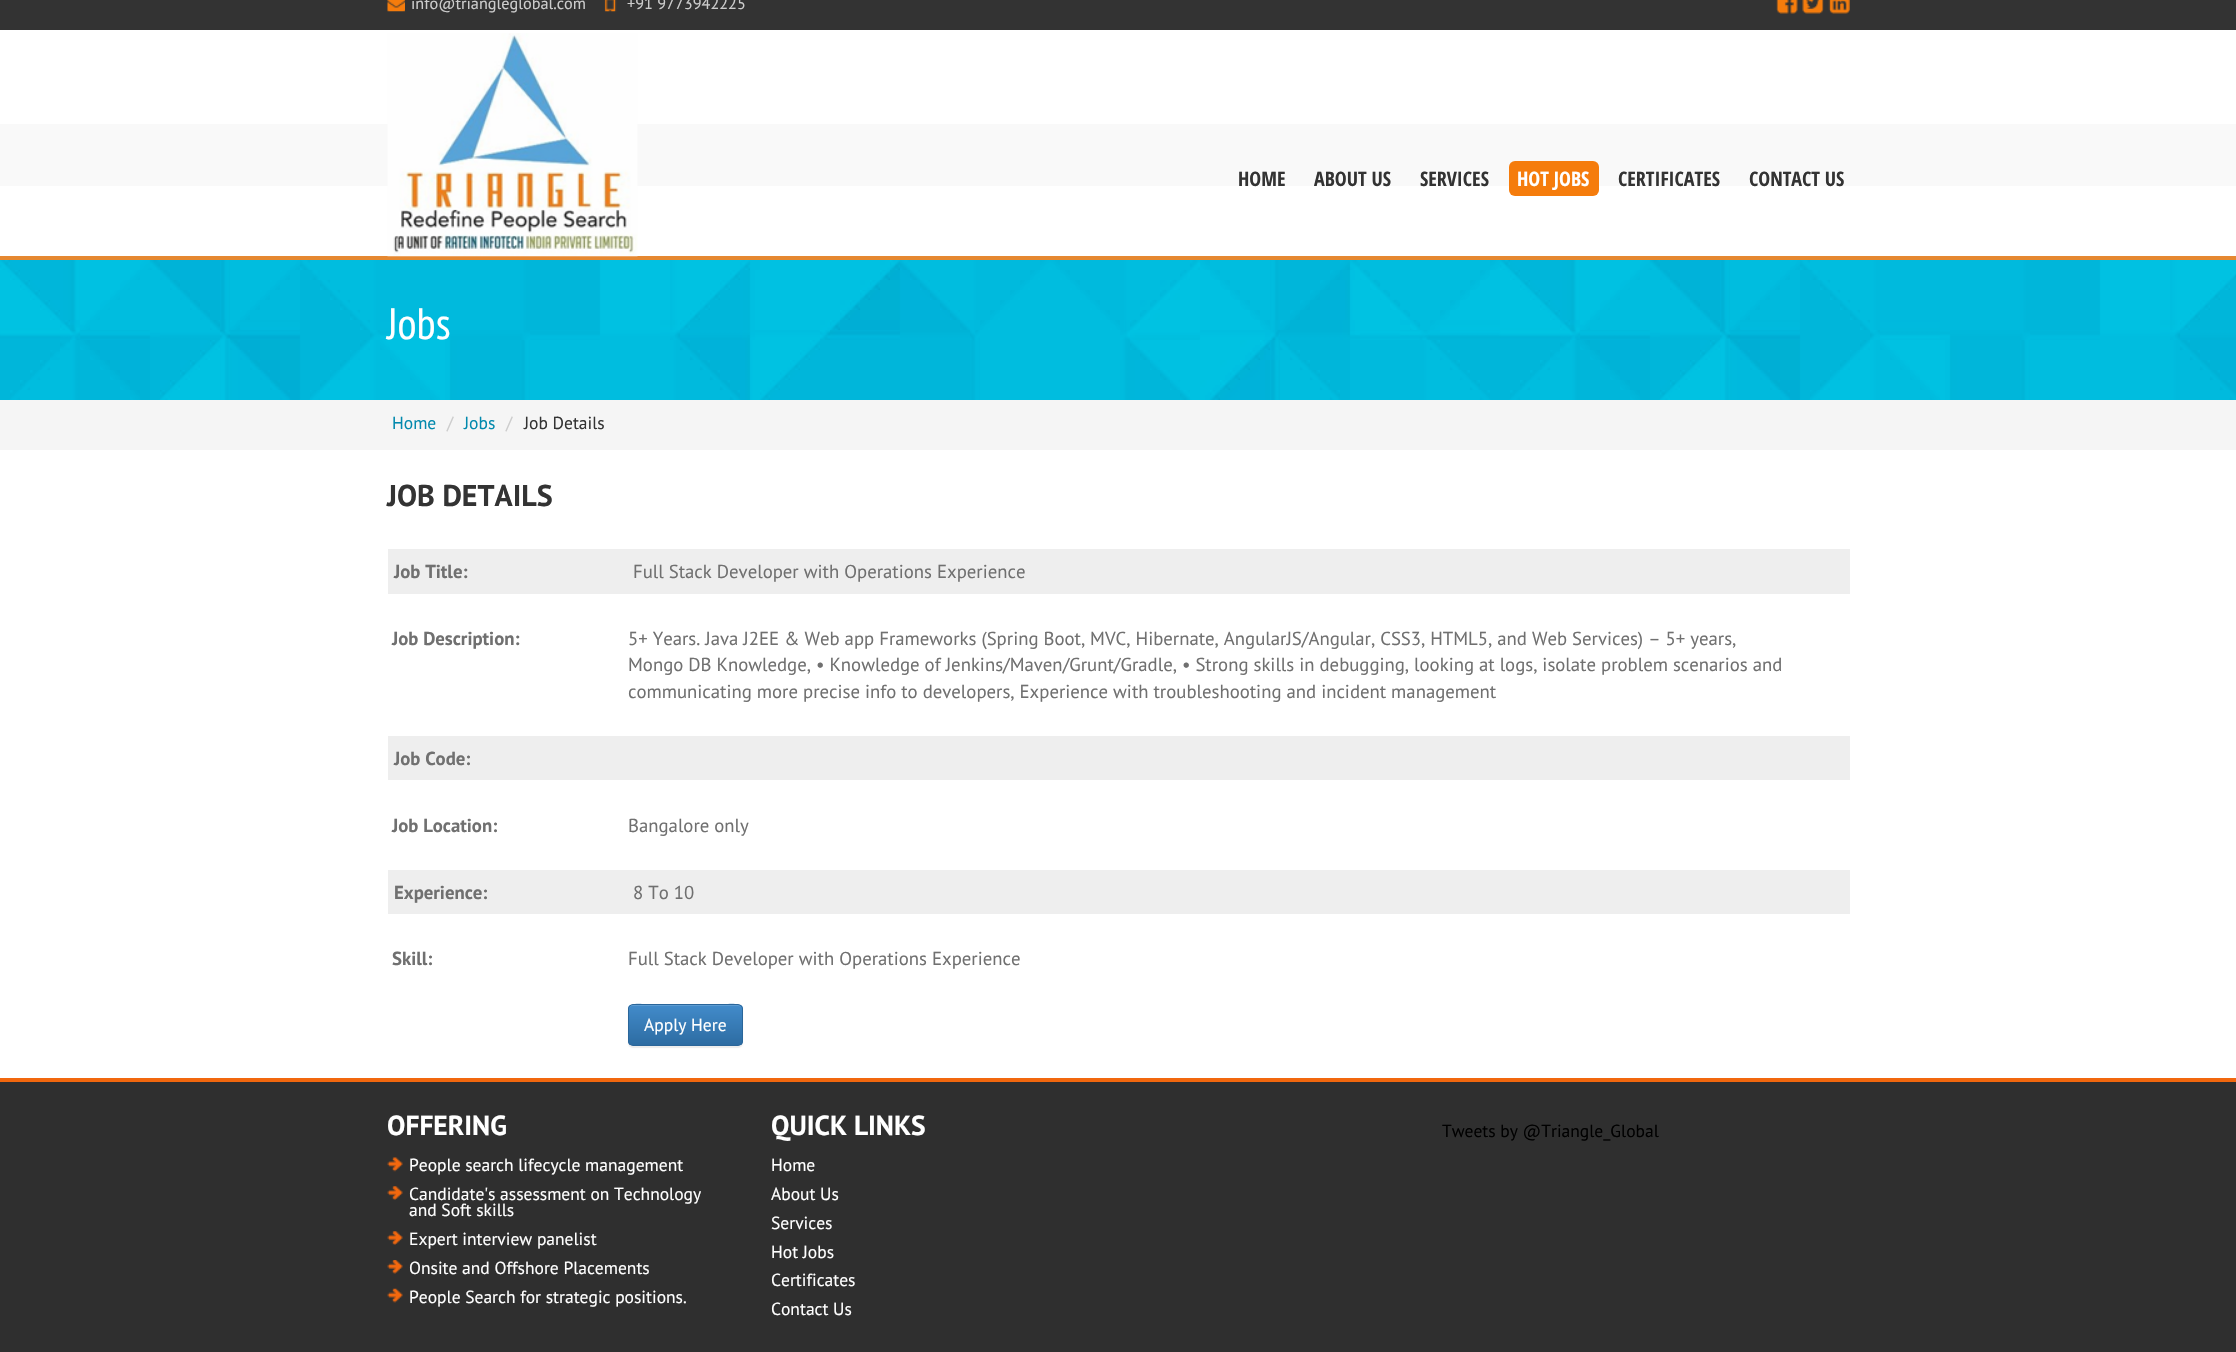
#include "include/core/SkBlurTypes.h"
#include "include/core/SkCanvas.h"
#include "include/core/SkData.h"
#include "include/core/SkFont.h"
#include "include/core/SkFontMgr.h"
#include "include/core/SkImage.h"
#include "include/core/SkMaskFilter.h"
#include "include/core/SkPaint.h"
#include "include/core/SkPathBuilder.h"
#include "include/core/SkTextBlob.h"
#include "include/effects/SkDashPathEffect.h"
#include "include/effects/SkGradientShader.h"
#include "include/utils/SkParsePath.h"

extern sk_sp<SkFontMgr> fontMgr;

void draw(SkCanvas* canvas) {
  SkPaint p;
  p.setAntiAlias(true);
  canvas->clear(SK_ColorWHITE);
  p.setColor(SkColorSetRGB(51, 51, 51));
  canvas->drawRect(SkRect::MakeLTRB(0, 0, 2236, 30), p);
  canvas->drawImageRect(SkImages::DeferredFromEncodedData(SkData::MakeFromFileName("images/1.png")), SkRect::MakeLTRB(387, 0, 405, 12), SkSamplingOptions());
  canvas->drawImageRect(SkImages::DeferredFromEncodedData(SkData::MakeFromFileName("images/2.png")), SkRect::MakeLTRB(604, 0, 617, 12), SkSamplingOptions());
  canvas->drawImageRect(SkImages::DeferredFromEncodedData(SkData::MakeFromFileName("images/3.png")), SkRect::MakeLTRB(1776, 0, 1798, 14), SkSamplingOptions());
  canvas->drawImageRect(SkImages::DeferredFromEncodedData(SkData::MakeFromFileName("images/4.png")), SkRect::MakeLTRB(1802, 0, 1824, 14), SkSamplingOptions());
  canvas->drawImageRect(SkImages::DeferredFromEncodedData(SkData::MakeFromFileName("images/5.png")), SkRect::MakeLTRB(1828, 0, 1850, 14), SkSamplingOptions());
  p.setColor(SkColorSetRGB(249, 249, 249));
  canvas->drawRect(SkRect::MakeLTRB(0, 124, 2236, 186), p);
  p.setColor(SkColorSetRGB(229, 136, 49));
  canvas->drawRect(SkRect::MakeLTRB(0, 256, 2236, 260), p);
  canvas->drawImageRect(SkImages::DeferredFromEncodedData(SkData::MakeFromFileName("images/6.png")), SkRect::MakeLTRB(387, 33, 638, 257), SkSamplingOptions());
  p.setColor(SkColorSetRGB(245, 124, 12));
  canvas->drawRoundRect(SkRect::MakeLTRB(1509, 161, 1599, 196), 6, 6, p);
  canvas->drawImageRect(SkImages::DeferredFromEncodedData(SkData::MakeFromFileName("images/7.png")), SkRect::MakeLTRB(0, 260, 2236, 400), SkSamplingOptions());
  p.setColor(SkColorSetRGB(245, 245, 245));
  canvas->drawRect(SkRect::MakeLTRB(0, 400, 2236, 450), p);
  p.setColor(SkColorSetRGB(238, 238, 238));
  canvas->drawRect(SkRect::MakeLTRB(388, 549, 1850, 594), p);
  canvas->drawRect(SkRect::MakeLTRB(388, 736, 1850, 780), p);
  canvas->drawRect(SkRect::MakeLTRB(388, 870, 1850, 914), p);
  p.setColor(SkColorSetARGB(18, 0, 0, 0));
  p.setMaskFilter(SkMaskFilter::MakeBlur(kNormal_SkBlurStyle, 0.5f));
  canvas->drawRoundRect(SkRect::MakeLTRB(628, 1005, 743, 1048), 5, 5, p);
  p.setMaskFilter(nullptr);
  canvas->save();
  canvas->clipPath(SkPathBuilder().moveTo(633, 1004).lineTo(738, 1004).cubicTo(741, 1004, 743, 1006, 743, 1009).lineTo(743, 1041).cubicTo(743, 1044, 741, 1046, 738, 1046).lineTo(633, 1046).cubicTo(630, 1046, 628, 1044, 628, 1041).lineTo(628, 1009).cubicTo(628, 1006, 630, 1004, 633, 1004).close().detach(), true);
  {
    const SkColor colors[] = {SkColorSetRGB(66, 139, 202), SkColorSetRGB(45, 108, 162)};
    const float stops[] = {0, 1};
    const SkPoint ends[] = {{685, 1005}, {685, 1045}};
    p.setShader(SkGradientShader::MakeLinear(ends, colors, stops, 2, SkTileMode::kClamp));
    p.setAlpha(255);
  }
  canvas->drawRect(SkRect::MakeLTRB(628, 1005, 743, 1045), p);
  canvas->restore();
  p.setShader(nullptr);
  p.setColor(SkColorSetRGB(94, 156, 210));
  canvas->drawPath(SkPathBuilder().moveTo(632, 1006).lineTo(738, 1006).cubicTo(740, 1006, 741, 1008, 741, 1010).cubicTo(741, 1000, 723, 1005, 720, 1005).lineTo(650, 1005).cubicTo(647, 1005, 629, 1000, 629, 1010).cubicTo(629, 1008, 630, 1006, 632, 1006).close().detach(), p);
  p.setStyle(SkPaint::kStroke_Style);
  p.setStrokeWidth(1);
  p.setColor(SkColorSetRGB(43, 102, 154));
  canvas->drawRoundRect(SkRect::MakeLTRB(628.5f, 1004.5f, 742.5f, 1045.5f), 4.5f, 4.5f, p);
  p.setStyle(SkPaint::kFill_Style);
  p.setColor(SkColorSetRGB(47, 47, 47));
  canvas->drawRect(SkRect::MakeLTRB(0, 1082, 2236, 1352), p);
  p.setColor(SkColorSetRGB(241, 103, 14));
  canvas->drawRect(SkRect::MakeLTRB(0, 1078, 2236, 1082), p);
  canvas->drawImageRect(SkImages::DeferredFromEncodedData(SkData::MakeFromFileName("images/8.png")), SkRect::MakeLTRB(387, 1157, 403, 1172), SkSamplingOptions());
  canvas->drawImageRect(SkImages::DeferredFromEncodedData(SkData::MakeFromFileName("images/9.png")), SkRect::MakeLTRB(387, 1186, 403, 1200), SkSamplingOptions());
  canvas->drawImageRect(SkImages::DeferredFromEncodedData(SkData::MakeFromFileName("images/9.png")), SkRect::MakeLTRB(387, 1231, 403, 1245), SkSamplingOptions());
  canvas->drawImageRect(SkImages::DeferredFromEncodedData(SkData::MakeFromFileName("images/10.png")), SkRect::MakeLTRB(387, 1260, 403, 1274), SkSamplingOptions());
  canvas->drawImageRect(SkImages::DeferredFromEncodedData(SkData::MakeFromFileName("images/11.png")), SkRect::MakeLTRB(387, 1288, 403, 1303), SkSamplingOptions());
  SkFont font1(fontMgr->matchFamilyStyle("PT Sans", SkFontStyle::Normal()), 16.25f);
  font1.setSubpixel(true);
  p.setColor(SkColorSetRGB(204, 204, 204));
  canvas->drawString("info@triangleglobal.com", 411, 9, font1, p);
  canvas->drawString("+91 9773942225", 627, 9, font1, p);
  SkFont font2(fontMgr->matchFamilyStyle("Open Sans Condensed", SkFontStyle::Bold()), 20);
  font2.setSubpixel(true);
  p.setColor(SkColorSetRGB(51, 51, 51));
  canvas->drawString("HOME", 1238, 186, font2, p);
  canvas->drawString("ABOUT US", 1314, 186, font2, p);
  canvas->drawString("SERVICES", 1420, 186, font2, p);
  p.setColor(SK_ColorWHITE);
  canvas->drawString("HOT JOBS", 1517, 186, font2, p);
  p.setColor(SkColorSetRGB(51, 51, 51));
  canvas->drawString("CERTIFICATES", 1618, 186, font2, p);
  canvas->drawString("CONTACT US", 1749, 186, font2, p);
  SkFont font3(fontMgr->matchFamilyStyle("PT Sans Narrow", SkFontStyle::Normal()), 44);
  font3.setSubpixel(true);
  p.setColor(SK_ColorWHITE);
  canvas->drawString("Jobs", 387, 339, font3, p);
  SkFont font4(fontMgr->matchFamilyStyle("PT Sans", SkFontStyle::Normal()), 17.5f);
  font4.setSubpixel(true);
  p.setColor(SkColorSetRGB(2, 137, 173));
  canvas->drawString("Home", 392, 429, font4, p);
  p.setColor(SkColorSetRGB(204, 204, 204));
  canvas->drawString("/", 447, 429, font4, p);
  p.setColor(SkColorSetRGB(2, 137, 173));
  canvas->drawString("Jobs", 464, 429, font4, p);
  p.setColor(SkColorSetRGB(204, 204, 204));
  canvas->drawString("/", 506, 429, font4, p);
  p.setColor(SkColorSetRGB(51, 51, 51));
  canvas->drawString("Job Details", 524, 429, font4, p);
  SkFont font5(fontMgr->matchFamilyStyle("PT Sans", SkFontStyle::Bold()), 30);
  font5.setSubpixel(true);
  canvas->drawString("JOB DETAILS", 387, 506, font5, p);
  SkFont font6(fontMgr->matchFamilyStyle("PT Sans", SkFontStyle::Bold()), 18.75f);
  font6.setSubpixel(true);
  p.setColor(SkColorSetRGB(112, 112, 112));
  canvas->drawString("Job Title:", 394, 578, font6, p);
  SkFont font7(fontMgr->matchFamilyStyle("PT Sans", SkFontStyle::Normal()), 18.75f);
  font7.setSubpixel(true);
  canvas->drawString("Full Stack Developer with Operations Experience", 633, 578, font7, p);
  canvas->drawString("Job Description:", 392, 645, font6, p);
  canvas->drawString("5+ Years. Java J2EE & Web app Frameworks (Spring Boot, MVC, Hibernate, AngularJS/Angular, CSS3, HTML5, and Web Services) – 5+ years,", 628, 645, font7, p);
  canvas->drawString("Mongo DB Knowledge, • Knowledge of Jenkins/Maven/Grunt/Gradle, • Strong skills in debugging, looking at logs, isolate problem scenarios and", 628, 671, font7, p);
  canvas->drawString("communicating more precise info to developers, Experience with troubleshooting and incident management", 628, 698, font7, p);
  canvas->drawString("Job Code:", 394, 765, font6, p);
  canvas->drawString("Job Location:", 392, 832, font6, p);
  canvas->drawString("Bangalore only", 628, 832, font7, p);
  canvas->drawString("Experience:", 394, 899, font6, p);
  canvas->drawString("8 To 10", 633, 899, font7, p);
  canvas->drawString("Skill:", 392, 965, font6, p);
  canvas->drawString("Full Stack Developer with Operations Experience", 628, 965, font7, p);
  p.setColor(SK_ColorWHITE);
  canvas->drawString("Apply Here", 644, 1031, font4, p);
  SkFont font8(fontMgr->matchFamilyStyle("PT Sans", SkFontStyle::Bold()), 27.5f);
  font8.setSubpixel(true);
  canvas->drawString("OFFERING", 387, 1135, font8, p);
  canvas->drawString("People search lifecycle management", 409, 1171, font4, p);
  canvas->drawString("Candidate's assessment on Technology", 409, 1200, font4, p);
  canvas->drawString("and Soft skills", 409, 1216, font4, p);
  canvas->drawString("Expert interview panelist", 409, 1245, font4, p);
  canvas->drawString("Onsite and Offshore Placements", 409, 1274, font4, p);
  canvas->drawString("People Search for strategic positions.", 409, 1303, font4, p);
  canvas->drawString("QUICK LINKS", 771, 1135, font8, p);
  canvas->drawString("Home", 771, 1171, font4, p);
  canvas->drawString("About Us", 771, 1200, font4, p);
  canvas->drawString("Services", 771, 1229, font4, p);
  canvas->drawString("Hot Jobs", 771, 1258, font4, p);
  canvas->drawString("Certificates", 771, 1286, font4, p);
  canvas->drawString("Contact Us", 771, 1315, font4, p);
  p.setColor(SK_ColorBLACK);
  canvas->drawString("Tweets by @Triangle_Global", 1442, 1137, font4, p);
}
